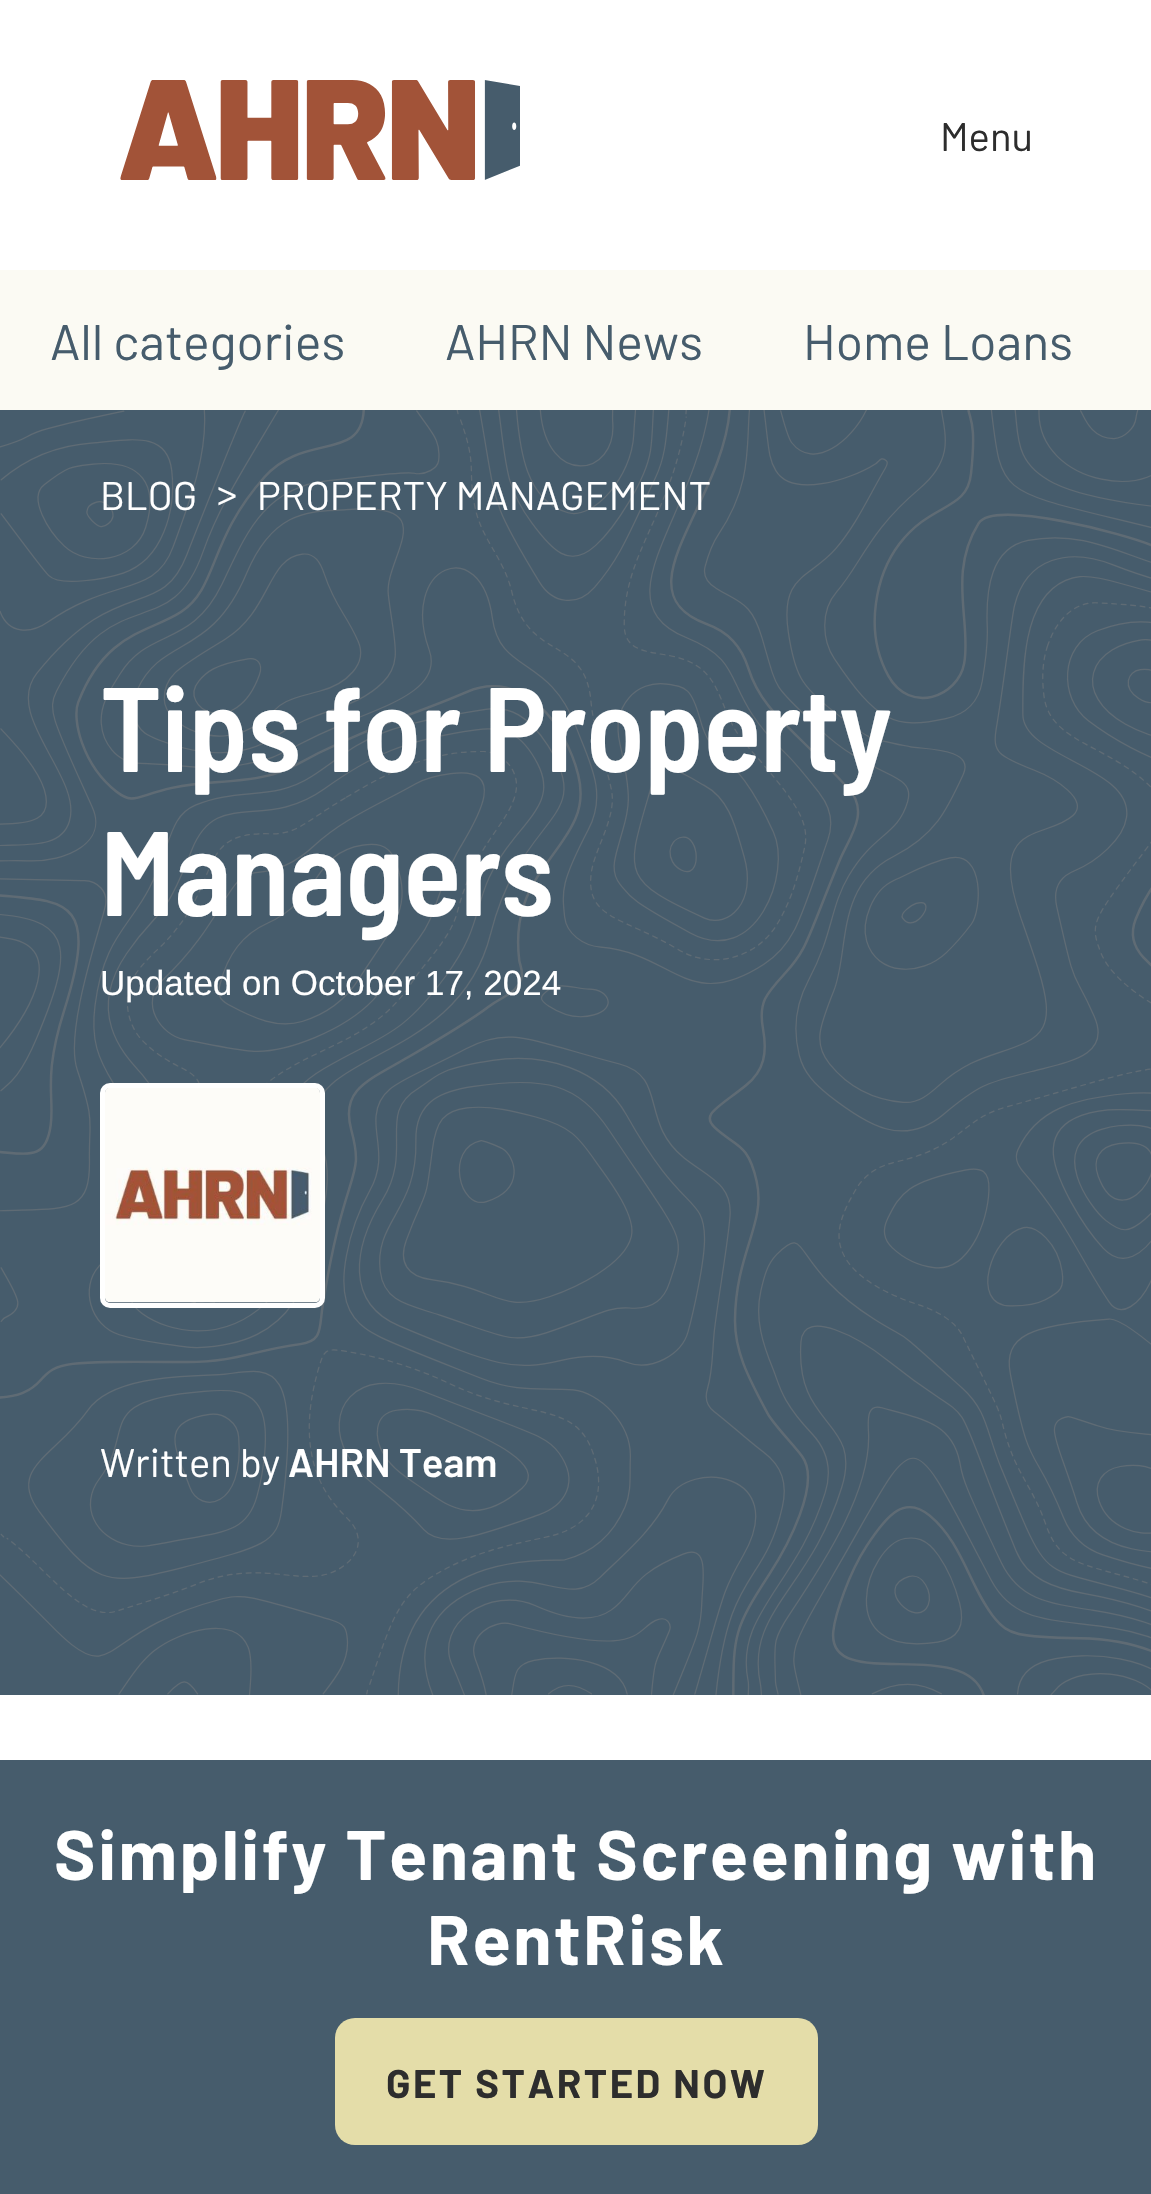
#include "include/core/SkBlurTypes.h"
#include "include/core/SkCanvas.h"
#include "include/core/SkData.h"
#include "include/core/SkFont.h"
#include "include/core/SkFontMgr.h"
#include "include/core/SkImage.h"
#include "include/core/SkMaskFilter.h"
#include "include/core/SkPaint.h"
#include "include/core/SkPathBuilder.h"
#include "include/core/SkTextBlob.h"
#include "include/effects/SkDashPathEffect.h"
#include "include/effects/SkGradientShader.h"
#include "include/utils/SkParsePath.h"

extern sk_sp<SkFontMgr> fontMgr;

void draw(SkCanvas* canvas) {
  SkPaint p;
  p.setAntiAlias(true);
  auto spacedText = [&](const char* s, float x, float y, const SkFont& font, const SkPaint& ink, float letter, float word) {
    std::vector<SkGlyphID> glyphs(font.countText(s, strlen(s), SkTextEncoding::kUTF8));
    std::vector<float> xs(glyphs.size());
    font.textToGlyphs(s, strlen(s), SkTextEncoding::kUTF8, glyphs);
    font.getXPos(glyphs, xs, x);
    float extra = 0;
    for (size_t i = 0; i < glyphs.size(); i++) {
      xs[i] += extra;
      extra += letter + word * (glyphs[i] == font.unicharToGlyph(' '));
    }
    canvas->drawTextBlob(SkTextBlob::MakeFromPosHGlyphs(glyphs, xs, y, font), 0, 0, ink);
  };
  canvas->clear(SK_ColorWHITE);
  canvas->drawImageRect(SkImages::DeferredFromEncodedData(SkData::MakeFromFileName("images/1.png")), SkRect::MakeLTRB(120, 80, 520, 180), SkSamplingOptions());
  p.setColor(SkColorSetRGB(251, 250, 243));
  canvas->drawRect(SkRect::MakeLTRB(0, 270, 1151, 410), p);
  p.setColor(SkColorSetRGB(70, 92, 108));
  canvas->drawRect(SkRect::MakeLTRB(0, 410, 1151, 1695), p);
  canvas->drawImageRect(SkImages::DeferredFromEncodedData(SkData::MakeFromFileName("images/2.png")), SkRect::MakeLTRB(0, 410, 1151, 1695), SkSamplingOptions());
  p.setStyle(SkPaint::kStroke_Style);
  p.setStrokeWidth(5);
  p.setColor(SK_ColorWHITE);
  canvas->drawRoundRect(SkRect::MakeLTRB(102.5f, 1085.5f, 322.5f, 1305.5f), 7.5f, 7.5f, p);
  canvas->drawImageRect(SkImages::DeferredFromEncodedData(SkData::MakeFromFileName("images/3.png")), SkRect::MakeLTRB(105, 1088, 320, 1303), SkSamplingOptions());
  p.setStyle(SkPaint::kFill_Style);
  p.setColor(SkColorSetRGB(70, 92, 108));
  canvas->drawRect(SkRect::MakeLTRB(0, 1760, 1151, 2194), p);
  p.setColor(SkColorSetRGB(228, 221, 169));
  canvas->drawRoundRect(SkRect::MakeLTRB(335, 2018, 818, 2145), 20, 20, p);
  SkFont font1(fontMgr->matchFamilyStyle("Barlow", SkFontStyle::Normal()), 40);
  font1.setSubpixel(true);
  p.setColor(SkColorSetRGB(45, 45, 45));
  canvas->drawString("Menu", 940, 151, font1, p);
  SkFont font2(fontMgr->matchFamilyStyle("Barlow", SkFontStyle::Normal()), 50);
  font2.setSubpixel(true);
  p.setColor(SkColorSetRGB(70, 92, 108));
  canvas->drawString("All categories", 50, 360, font2, p);
  canvas->drawString("AHRN News", 445, 360, font2, p);
  canvas->drawString("Home Loans", 803, 360, font2, p);
  p.setColor(SK_ColorWHITE);
  canvas->drawString("BLOG", 100, 510, font1, p);
  canvas->drawString(">", 217, 507, font1, p);
  canvas->drawString("PROPERTY MANAGEMENT", 257, 510, font1, p);
  SkFont font3(fontMgr->matchFamilyStyle("Barlow Semi Condensed", SkFontStyle(600, SkFontStyle::kNormal_Width, SkFontStyle::kUpright_Slant)), 120);
  font3.setSubpixel(true);
  spacedText("Tips for Property", 100, 772, font3, p, -0.9f, 0);
  spacedText("Managers", 100, 916, font3, p, -0.9f, 0);
  SkFont font4(fontMgr->matchFamilyStyle("Liberation Sans", SkFontStyle::Normal()), 35);
  font4.setSubpixel(true);
  canvas->drawString("Updated on October 17, 2024", 100, 995, font4, p);
  canvas->drawString("Written by", 100, 1477, font1, p);
  SkFont font5(fontMgr->matchFamilyStyle("Barlow", SkFontStyle(600, SkFontStyle::kNormal_Width, SkFontStyle::kUpright_Slant)), 40);
  font5.setSubpixel(true);
  canvas->drawString("AHRN Team", 288, 1477, font5, p);
  SkFont font6(fontMgr->matchFamilyStyle("Barlow", SkFontStyle::Bold()), 70);
  font6.setSubpixel(true);
  spacedText("Simplify Tenant Screening with", 54, 1880, font6, p, 2.5f, 0);
  spacedText("RentRisk", 427, 1965, font6, p, 2.5f, 0);
  SkFont font7(fontMgr->matchFamilyStyle("Barlow", SkFontStyle::Bold()), 40);
  font7.setSubpixel(true);
  p.setColor(SkColorSetRGB(45, 45, 45));
  spacedText("GET STARTED NOW", 386, 2098, font7, p, 2.5f, 0);
}
